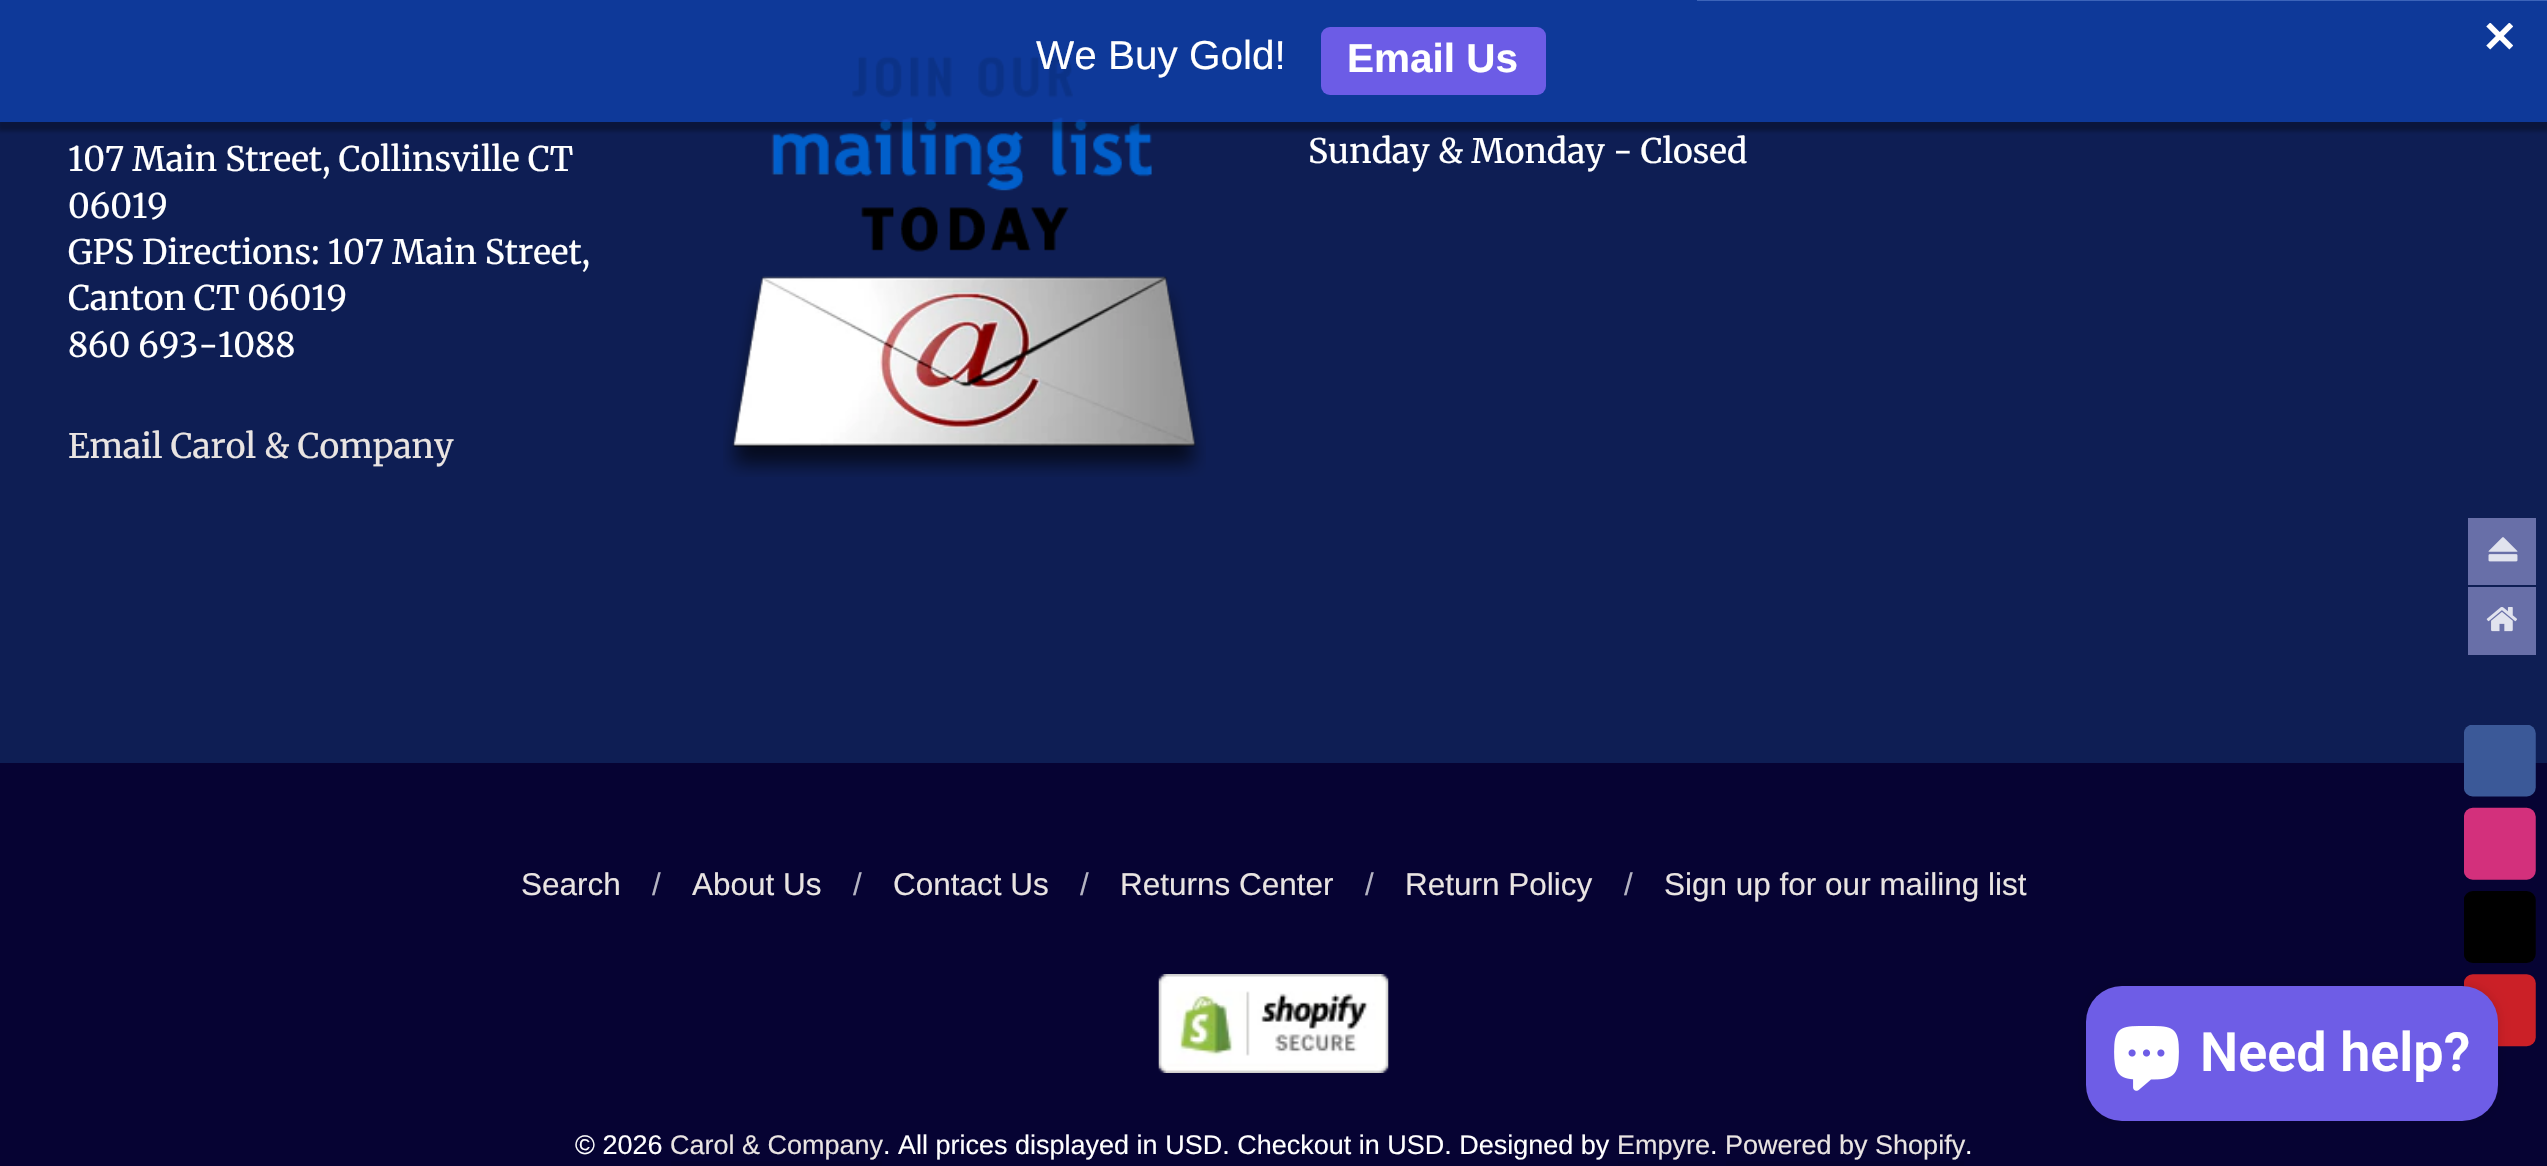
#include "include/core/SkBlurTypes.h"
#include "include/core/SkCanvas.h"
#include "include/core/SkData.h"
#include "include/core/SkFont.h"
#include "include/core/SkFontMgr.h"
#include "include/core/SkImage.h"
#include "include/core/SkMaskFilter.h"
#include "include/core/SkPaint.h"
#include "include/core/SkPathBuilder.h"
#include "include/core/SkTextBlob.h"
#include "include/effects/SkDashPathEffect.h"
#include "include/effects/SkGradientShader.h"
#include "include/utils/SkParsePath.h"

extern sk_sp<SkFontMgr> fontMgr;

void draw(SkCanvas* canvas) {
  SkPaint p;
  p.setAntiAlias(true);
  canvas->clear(SkColorSetRGB(6, 3, 51));
  p.setColor(SkColorSetRGB(14, 30, 84));
  canvas->drawRect(SkRect::MakeLTRB(0, 0, 2547, 763), p);
  p.setColor(SkColorSetRGB(232, 233, 235));
  canvas->drawRect(SkRect::MakeLTRB(1697, 0, 2547, 1), p);
  canvas->drawImageRect(SkImages::DeferredFromEncodedData(SkData::MakeFromFileName("images/2.png")), SkRect::MakeLTRB(723, 56, 1206, 477), SkSamplingOptions());
  canvas->save();
  canvas->clipPath(SkPathBuilder(SkPathFillType::kEvenOdd).moveTo(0, 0).lineTo(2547, 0).lineTo(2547, 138).lineTo(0, 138).close().moveTo(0, 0).lineTo(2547, 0).lineTo(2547, 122).lineTo(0, 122).close().detach(), true);
  p.setColor(SkColorSetARGB(77, 0, 0, 0));
  p.setMaskFilter(SkMaskFilter::MakeBlur(kNormal_SkBlurStyle, 2));
  canvas->drawRect(SkRect::MakeLTRB(-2, 5, 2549, 131), p);
  p.setMaskFilter(nullptr);
  canvas->restore();
  p.setColor(SkColorSetARGB(201, 14, 63, 171));
  canvas->drawRect(SkRect::MakeLTRB(0, 0, 2547, 122), p);
  p.setColor(SkColorSetRGB(108, 92, 230));
  canvas->drawRoundRect(SkRect::MakeLTRB(1321, 27, 1546, 95), 9, 9, p);
  canvas->drawImageRect(SkImages::DeferredFromEncodedData(SkData::MakeFromFileName("images/1.png")), SkRect::MakeLTRB(2486, 23, 2513, 50), SkSamplingOptions());
  canvas->drawImageRect(SkImages::DeferredFromEncodedData(SkData::MakeFromFileName("images/3.png")), SkRect::MakeLTRB(1158, 974, 1389, 1073), SkSamplingOptions());
  p.setColor(SkColorSetRGB(6, 3, 48));
  canvas->drawRect(SkRect::MakeLTRB(671, 1161, 882, 1166), p);
  canvas->drawRect(SkRect::MakeLTRB(1618, 1161, 1710, 1166), p);
  canvas->drawRect(SkRect::MakeLTRB(1726, 1161, 1964, 1166), p);
  p.setColor(SkColorSetRGB(104, 111, 168));
  canvas->drawRect(SkRect::MakeLTRB(2468, 518, 2536, 585), p);
  canvas->drawImageRect(SkImages::DeferredFromEncodedData(SkData::MakeFromFileName("images/4.png")), SkRect::MakeLTRB(2488, 537, 2518, 562), SkSamplingOptions());
  canvas->drawRect(SkRect::MakeLTRB(2468, 587, 2536, 655), p);
  canvas->drawImageRect(SkImages::DeferredFromEncodedData(SkData::MakeFromFileName("images/5.png")), SkRect::MakeLTRB(2486, 607, 2517, 632), SkSamplingOptions());
  canvas->drawImageRect(SkImages::DeferredFromEncodedData(SkData::MakeFromFileName("images/6.png")), SkRect::MakeLTRB(2464, 725, 2536, 1047), SkSamplingOptions());
  p.setColor(SkColorSetARGB(38, 0, 0, 0));
  p.setMaskFilter(SkMaskFilter::MakeBlur(kNormal_SkBlurStyle, 5.5f));
  canvas->drawRoundRect(SkRect::MakeLTRB(2086, 986, 2498, 1121), 36, 36, p);
  p.setMaskFilter(nullptr);
  p.setColor(SkColorSetRGB(110, 93, 230));
  canvas->drawRoundRect(SkRect::MakeLTRB(2086, 986, 2498, 1121), 36, 36, p);
  canvas->drawImageRect(SkImages::DeferredFromEncodedData(SkData::MakeFromFileName("images/7.png")), SkRect::MakeLTRB(2114, 1026, 2179, 1091), SkSamplingOptions());
  SkFont font1(fontMgr->matchFamilyStyle("Liberation Sans", SkFontStyle::Normal()), 40.5f);
  font1.setSubpixel(true);
  p.setColor(SK_ColorWHITE);
  canvas->drawString("We Buy Gold!", 1036, 69, font1, p);
  SkFont font2(fontMgr->matchFamilyStyle("Liberation Sans", SkFontStyle::Bold()), 40.5f);
  font2.setSubpixel(true);
  canvas->drawString("Email Us", 1347, 72, font2, p);
  SkFont font3(fontMgr->matchFamilyStyle("Merriweather", SkFontStyle::Normal()), 33.75f);
  font3.setSubpixel(true);
  canvas->drawString("107 Main Street, Collinsville CT", 68, 171, font3, p);
  canvas->drawString("06019", 68, 218, font3, p);
  canvas->drawString("GPS Directions: 107 Main Street,", 68, 264, font3, p);
  canvas->drawString("Canton CT 06019", 68, 310, font3, p);
  canvas->drawString("860 693-1088", 68, 357, font3, p);
  p.setColor(SkColorSetRGB(233, 228, 226));
  canvas->drawString("Email Carol & Company", 68, 458, font3, p);
  p.setColor(SK_ColorWHITE);
  canvas->drawString("Sunday & Monday - Closed", 1308, 163, font3, p);
  SkFont font4(fontMgr->matchFamilyStyle("Liberation Sans", SkFontStyle::Normal()), 31.5f);
  font4.setSubpixel(true);
  p.setColor(SkColorSetRGB(233, 228, 226));
  canvas->drawString("Search", 521, 895, font4, p);
  p.setColor(SkColorSetRGB(180, 179, 194));
  canvas->drawString("/", 652, 895, font4, p);
  p.setColor(SkColorSetRGB(233, 228, 226));
  canvas->drawString("About Us", 692, 895, font4, p);
  p.setColor(SkColorSetRGB(180, 179, 194));
  canvas->drawString("/", 853, 895, font4, p);
  p.setColor(SkColorSetRGB(233, 228, 226));
  canvas->drawString("Contact Us", 893, 895, font4, p);
  p.setColor(SkColorSetRGB(180, 179, 194));
  canvas->drawString("/", 1080, 895, font4, p);
  p.setColor(SkColorSetRGB(233, 228, 226));
  canvas->drawString("Returns Center", 1120, 895, font4, p);
  p.setColor(SkColorSetRGB(180, 179, 194));
  canvas->drawString("/", 1365, 895, font4, p);
  p.setColor(SkColorSetRGB(233, 228, 226));
  canvas->drawString("Return Policy", 1405, 895, font4, p);
  p.setColor(SkColorSetRGB(180, 179, 194));
  canvas->drawString("/", 1624, 895, font4, p);
  p.setColor(SkColorSetRGB(233, 228, 226));
  canvas->drawString("Sign up for our mailing list", 1664, 895, font4, p);
  SkFont font5(fontMgr->matchFamilyStyle("Liberation Sans", SkFontStyle::Normal()), 27);
  font5.setSubpixel(true);
  p.setColor(SK_ColorWHITE);
  canvas->drawString("© 2026", 575, 1154, font5, p);
  p.setColor(SkColorSetRGB(233, 228, 226));
  canvas->drawString("Carol & Company", 670, 1154, font5, p);
  p.setColor(SK_ColorWHITE);
  canvas->drawString(". All prices displayed in USD. Checkout in USD. Designed by", 883, 1154, font5, p);
  p.setColor(SkColorSetRGB(233, 228, 226));
  canvas->drawString("Empyre", 1617, 1154, font5, p);
  p.setColor(SK_ColorWHITE);
  canvas->drawString(".", 1710, 1154, font5, p);
  p.setColor(SkColorSetRGB(233, 228, 226));
  canvas->drawString("Powered by Shopify", 1725, 1154, font5, p);
  p.setColor(SK_ColorWHITE);
  canvas->drawString(".", 1965, 1154, font5, p);
  SkFont font6(fontMgr->matchFamilyStyle("Roboto", SkFontStyle(600, SkFontStyle::kNormal_Width, SkFontStyle::kUpright_Slant)), 54);
  font6.setSubpixel(true);
  canvas->drawString("Need help?", 2200, 1071, font6, p);
}
